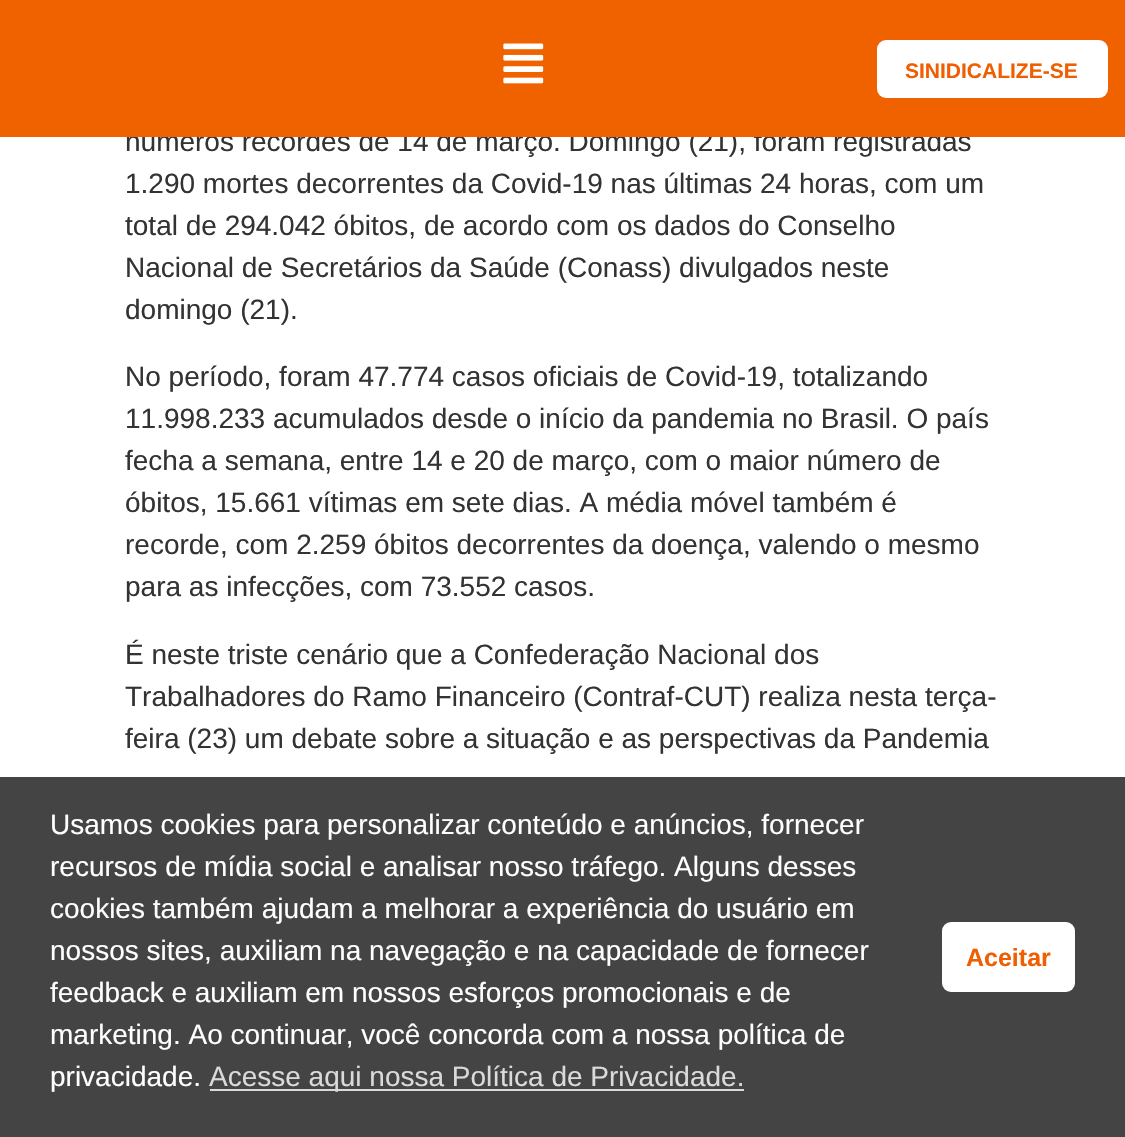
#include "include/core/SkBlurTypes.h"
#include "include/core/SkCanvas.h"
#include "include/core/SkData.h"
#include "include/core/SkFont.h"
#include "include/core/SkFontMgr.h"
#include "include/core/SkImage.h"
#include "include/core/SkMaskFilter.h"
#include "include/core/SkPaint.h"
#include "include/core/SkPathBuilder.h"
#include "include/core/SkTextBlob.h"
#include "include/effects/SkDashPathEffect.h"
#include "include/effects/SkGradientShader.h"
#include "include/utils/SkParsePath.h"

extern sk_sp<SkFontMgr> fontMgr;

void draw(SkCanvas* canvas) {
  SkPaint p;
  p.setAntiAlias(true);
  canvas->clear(SK_ColorWHITE);
  p.setColor(SkColorSetRGB(68, 68, 68));
  canvas->drawRect(SkRect::MakeLTRB(0, 777, 1125, 1137), p);
  p.setColor(SkColorSetRGB(218, 218, 218));
  canvas->drawRect(SkRect::MakeLTRB(210, 1089, 744, 1091), p);
  p.setColor(SK_ColorWHITE);
  canvas->drawRoundRect(SkRect::MakeLTRB(942, 922, 1075, 992), 9, 9, p);
  SkFont font1(fontMgr->matchFamilyStyle("Liberation Sans", SkFontStyle::Normal()), 28);
  font1.setSubpixel(true);
  p.setColor(SkColorSetRGB(51, 51, 51));
  canvas->drawString("números recordes de 14 de março. Domingo (21), foram registradas", 125, 151, font1, p);
  p.setColor(SkColorSetRGB(240, 97, 0));
  canvas->drawRect(SkRect::MakeLTRB(0, 0, 1125, 137), p);
  p.setColor(SK_ColorWHITE);
  canvas->drawRoundRect(SkRect::MakeLTRB(877, 40, 1108, 98), 9, 9, p);
  SkFont font2(fontMgr->matchFamilyStyle("Liberation Sans", SkFontStyle::Bold()), 21);
  font2.setSubpixel(true);
  p.setColor(SkColorSetRGB(239, 94, 1));
  canvas->drawString("SINIDICALIZE-SE", 905, 78, font2, p);
  canvas->drawImageRect(SkImages::DeferredFromEncodedData(SkData::MakeFromFileName("images/1.png")), SkRect::MakeLTRB(503, 43, 544, 84), SkSamplingOptions());
  p.setColor(SkColorSetRGB(51, 51, 51));
  canvas->drawString("1.290 mortes decorrentes da Covid-19 nas últimas 24 horas, com um", 125, 193, font1, p);
  canvas->drawString("total de 294.042 óbitos, de acordo com os dados do Conselho", 125, 235, font1, p);
  canvas->drawString("Nacional de Secretários da Saúde (Conass) divulgados neste", 125, 277, font1, p);
  canvas->drawString("domingo (21).", 125, 319, font1, p);
  canvas->drawString("No período, foram 47.774 casos oficiais de Covid-19, totalizando", 125, 386, font1, p);
  canvas->drawString("11.998.233 acumulados desde o início da pandemia no Brasil. O país", 125, 428, font1, p);
  canvas->drawString("fecha a semana, entre 14 e 20 de março, com o maior número de", 125, 470, font1, p);
  canvas->drawString("óbitos, 15.661 vítimas em sete dias. A média móvel também é", 125, 512, font1, p);
  canvas->drawString("recorde, com 2.259 óbitos decorrentes da doença, valendo o mesmo", 125, 554, font1, p);
  canvas->drawString("para as infecções, com 73.552 casos.", 125, 596, font1, p);
  canvas->drawString("É neste triste cenário que a Confederação Nacional dos", 125, 664, font1, p);
  canvas->drawString("Trabalhadores do Ramo Financeiro (Contraf-CUT) realiza nesta terça-", 125, 706, font1, p);
  canvas->drawString("feira (23) um debate sobre a situação e as perspectivas da Pandemia", 125, 748, font1, p);
  p.setColor(SK_ColorWHITE);
  canvas->drawString("Usamos cookies para personalizar conteúdo e anúncios, fornecer", 50, 834, font1, p);
  canvas->drawString("recursos de mídia social e analisar nosso tráfego. Alguns desses", 50, 876, font1, p);
  canvas->drawString("cookies também ajudam a melhorar a experiência do usuário em", 50, 918, font1, p);
  canvas->drawString("nossos sites, auxiliam na navegação e na capacidade de fornecer", 50, 960, font1, p);
  canvas->drawString("feedback e auxiliam em nossos esforços promocionais e de", 50, 1002, font1, p);
  canvas->drawString("marketing. Ao continuar, você concorda com a nossa política de", 50, 1044, font1, p);
  canvas->drawString("privacidade.", 50, 1086, font1, p);
  p.setColor(SkColorSetRGB(218, 218, 218));
  canvas->drawString("Acesse aqui nossa Política de Privacidade.", 209, 1086, font1, p);
  SkFont font3(fontMgr->matchFamilyStyle("Liberation Sans", SkFontStyle::Bold()), 25);
  font3.setSubpixel(true);
  p.setColor(SkColorSetRGB(239, 94, 1));
  canvas->drawString("Aceitar", 966, 966, font3, p);
}
